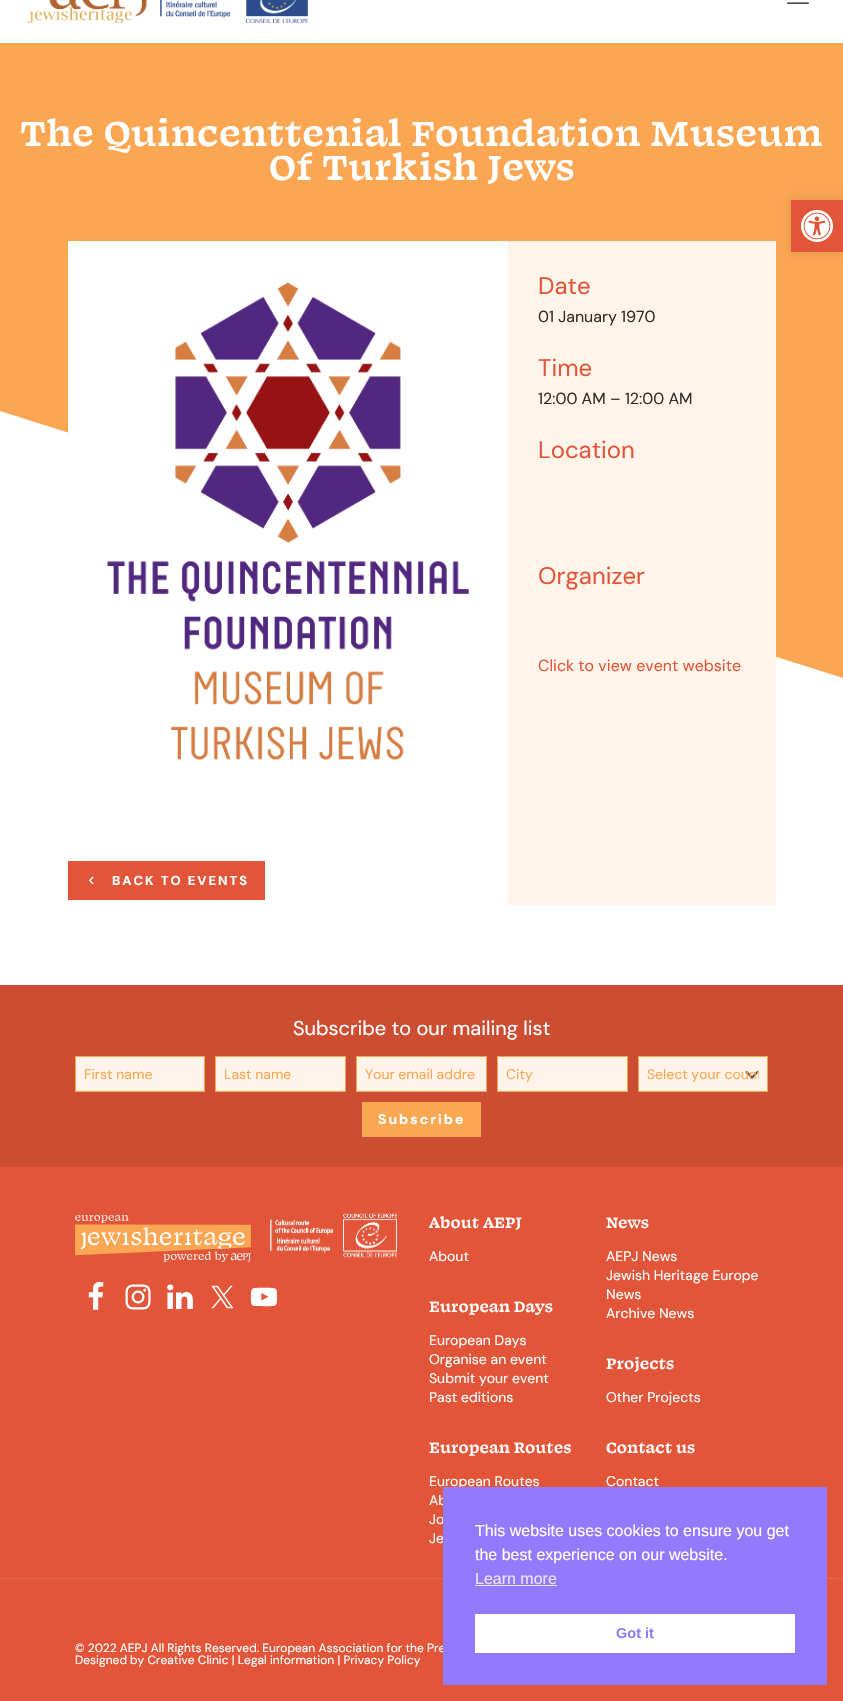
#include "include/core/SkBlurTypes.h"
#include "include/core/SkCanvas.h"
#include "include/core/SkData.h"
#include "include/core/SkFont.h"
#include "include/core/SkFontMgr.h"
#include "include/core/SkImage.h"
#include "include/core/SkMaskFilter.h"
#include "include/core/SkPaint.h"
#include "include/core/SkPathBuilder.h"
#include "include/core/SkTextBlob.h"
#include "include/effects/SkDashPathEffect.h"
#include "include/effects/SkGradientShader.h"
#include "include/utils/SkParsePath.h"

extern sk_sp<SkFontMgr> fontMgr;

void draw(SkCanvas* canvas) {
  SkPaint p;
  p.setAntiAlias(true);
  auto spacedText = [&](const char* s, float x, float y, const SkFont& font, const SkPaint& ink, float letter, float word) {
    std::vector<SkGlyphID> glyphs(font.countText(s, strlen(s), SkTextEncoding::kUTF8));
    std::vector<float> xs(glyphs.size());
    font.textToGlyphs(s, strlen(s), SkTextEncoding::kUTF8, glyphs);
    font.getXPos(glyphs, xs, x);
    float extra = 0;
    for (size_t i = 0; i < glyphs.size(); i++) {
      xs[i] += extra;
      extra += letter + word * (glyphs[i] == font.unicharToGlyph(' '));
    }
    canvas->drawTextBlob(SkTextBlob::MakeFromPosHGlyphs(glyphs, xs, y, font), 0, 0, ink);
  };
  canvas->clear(SK_ColorWHITE);
  canvas->drawImageRect(SkImages::DeferredFromEncodedData(SkData::MakeFromFileName("images/1.png")), SkRect::MakeLTRB(28, 0, 308, 23), SkSamplingOptions());
  canvas->drawImageRect(SkImages::DeferredFromEncodedData(SkData::MakeFromFileName("images/2.png")), SkRect::MakeLTRB(787, 2, 809, 4), SkSamplingOptions());
  p.setColor(SkColorSetRGB(250, 166, 83));
  canvas->drawPath(SkPathBuilder().moveTo(0, 43).lineTo(0, 411).lineTo(843, 678).lineTo(843, 43).close().detach(), p);
  p.setColor(SkColorSetRGB(255, 244, 234));
  canvas->drawRect(SkRect::MakeLTRB(508, 241, 776, 905), p);
  canvas->drawImageRect(SkImages::DeferredFromEncodedData(SkData::MakeFromFileName("images/3.png")), SkRect::MakeLTRB(68, 241, 508, 760), SkSamplingOptions());
  p.setColor(SkColorSetRGB(227, 85, 56));
  canvas->drawRect(SkRect::MakeLTRB(68, 861, 265, 900), p);
  canvas->drawImageRect(SkImages::DeferredFromEncodedData(SkData::MakeFromFileName("images/4.png")), SkRect::MakeLTRB(89, 876, 94, 885), SkSamplingOptions());
  canvas->drawRect(SkRect::MakeLTRB(0, 1167, 843, 1701), p);
  p.setColor(SkColorSetRGB(205, 77, 50));
  canvas->drawRect(SkRect::MakeLTRB(0, 985, 843, 1167), p);
  p.setColor(SkColorSetRGB(255, 243, 234));
  canvas->drawRect(SkRect::MakeLTRB(75.5f, 1056.5f, 204.5f, 1091.5f), p);
  p.setStyle(SkPaint::kStroke_Style);
  p.setStrokeWidth(1);
  p.setColor(SkColorSetRGB(250, 167, 82));
  canvas->drawRect(SkRect::MakeLTRB(75.5f, 1056.5f, 204.5f, 1091.5f), p);
  p.setStyle(SkPaint::kFill_Style);
  p.setColor(SkColorSetRGB(255, 243, 234));
  canvas->drawRect(SkRect::MakeLTRB(215.5f, 1056.5f, 345.5f, 1091.5f), p);
  p.setStyle(SkPaint::kStroke_Style);
  p.setColor(SkColorSetRGB(250, 167, 82));
  canvas->drawRect(SkRect::MakeLTRB(215.5f, 1056.5f, 345.5f, 1091.5f), p);
  p.setStyle(SkPaint::kFill_Style);
  p.setColor(SkColorSetRGB(255, 243, 234));
  canvas->drawRect(SkRect::MakeLTRB(356.5f, 1056.5f, 486.5f, 1091.5f), p);
  p.setStyle(SkPaint::kStroke_Style);
  p.setColor(SkColorSetRGB(250, 167, 82));
  canvas->drawRect(SkRect::MakeLTRB(356.5f, 1056.5f, 486.5f, 1091.5f), p);
  p.setStyle(SkPaint::kFill_Style);
  p.setColor(SkColorSetRGB(255, 243, 234));
  canvas->drawRect(SkRect::MakeLTRB(497.5f, 1056.5f, 627.5f, 1091.5f), p);
  p.setStyle(SkPaint::kStroke_Style);
  p.setColor(SkColorSetRGB(250, 167, 82));
  canvas->drawRect(SkRect::MakeLTRB(497.5f, 1056.5f, 627.5f, 1091.5f), p);
  p.setStyle(SkPaint::kFill_Style);
  p.setColor(SkColorSetRGB(255, 243, 234));
  canvas->drawRect(SkRect::MakeLTRB(639, 1057, 767, 1091), p);
  canvas->drawImageRect(SkImages::DeferredFromEncodedData(SkData::MakeFromFileName("images/5.png")), SkRect::MakeLTRB(745, 1071, 759, 1079), SkSamplingOptions());
  p.setStyle(SkPaint::kStroke_Style);
  p.setColor(SkColorSetRGB(250, 167, 82));
  canvas->drawRect(SkRect::MakeLTRB(638.5f, 1056.5f, 767.5f, 1091.5f), p);
  p.setStyle(SkPaint::kFill_Style);
  canvas->drawRect(SkRect::MakeLTRB(362, 1102, 481, 1137), p);
  canvas->drawImageRect(SkImages::DeferredFromEncodedData(SkData::MakeFromFileName("images/6.png")), SkRect::MakeLTRB(75, 1213, 397, 1262), SkSamplingOptions());
  canvas->drawImageRect(SkImages::DeferredFromEncodedData(SkData::MakeFromFileName("images/7.png")), SkRect::MakeLTRB(88, 1282, 104, 1310), SkSamplingOptions());
  canvas->drawImageRect(SkImages::DeferredFromEncodedData(SkData::MakeFromFileName("images/8.png")), SkRect::MakeLTRB(125, 1284, 151, 1310), SkSamplingOptions());
  canvas->drawImageRect(SkImages::DeferredFromEncodedData(SkData::MakeFromFileName("images/9.png")), SkRect::MakeLTRB(167, 1284, 193, 1309), SkSamplingOptions());
  canvas->drawImageRect(SkImages::DeferredFromEncodedData(SkData::MakeFromFileName("images/10.png")), SkRect::MakeLTRB(211, 1285, 234, 1309), SkSamplingOptions());
  canvas->drawImageRect(SkImages::DeferredFromEncodedData(SkData::MakeFromFileName("images/11.png")), SkRect::MakeLTRB(250, 1287, 278, 1307), SkSamplingOptions());
  p.setColor(SkColorSetRGB(230, 102, 76));
  canvas->drawRect(SkRect::MakeLTRB(0, 1578, 843, 1579), p);
  p.setColor(SkColorSetARGB(26, 0, 0, 0));
  p.setMaskFilter(SkMaskFilter::MakeBlur(kNormal_SkBlurStyle, 5));
  canvas->drawRect(SkRect::MakeLTRB(791, 200, 843, 252), p);
  p.setMaskFilter(nullptr);
  p.setColor(SkColorSetRGB(227, 85, 56));
  canvas->drawRect(SkRect::MakeLTRB(791, 200, 843, 252), p);
  canvas->drawImageRect(SkImages::DeferredFromEncodedData(SkData::MakeFromFileName("images/12.png")), SkRect::MakeLTRB(801, 210, 833, 242), SkSamplingOptions());
  SkFont font1(fontMgr->matchFamilyStyle("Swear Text", SkFontStyle::Bold()), 40);
  font1.setSubpixel(true);
  p.setColor(SK_ColorWHITE);
  canvas->drawString("The Quincenttenial Foundation Museum", 20, 146, font1, p);
  canvas->drawString("Of Turkish Jews", 269, 180, font1, p);
  SkFont font2(fontMgr->matchFamilyStyle("DM Sans", SkFontStyle::Normal()), 24);
  font2.setSubpixel(true);
  p.setColor(SkColorSetRGB(227, 85, 56));
  canvas->drawString("Date", 538, 294, font2, p);
  SkFont font3(fontMgr->matchFamilyStyle("DM Sans", SkFontStyle::Normal()), 16);
  font3.setSubpixel(true);
  p.setColor(SkColorSetRGB(49, 45, 43));
  canvas->drawString("01 January 1970", 538, 322, font3, p);
  p.setColor(SkColorSetRGB(227, 85, 56));
  canvas->drawString("Time", 538, 376, font2, p);
  p.setColor(SkColorSetRGB(49, 45, 43));
  canvas->drawString("12:00 AM – 12:00 AM", 538, 404, font3, p);
  p.setColor(SkColorSetRGB(227, 85, 56));
  canvas->drawString("Location", 538, 458, font2, p);
  canvas->drawString("Organizer", 538, 584, font2, p);
  canvas->drawString("Click to view event website", 538, 671, font3, p);
  SkFont font4(fontMgr->matchFamilyStyle("DM Sans", SkFontStyle::Bold()), 13);
  font4.setSubpixel(true);
  p.setColor(SK_ColorWHITE);
  spacedText("BACK TO EVENTS", 112, 885, font4, p, 2, 0);
  SkFont font5(fontMgr->matchFamilyStyle("DM Sans", SkFontStyle::Normal()), 20);
  font5.setSubpixel(true);
  canvas->drawString("Subscribe to our mailing list", 293, 1035, font5, p);
  SkFont font6(fontMgr->matchFamilyStyle("DM Sans", SkFontStyle::Normal()), 14);
  font6.setSubpixel(true);
  p.setColor(SkColorSetRGB(250, 167, 82));
  canvas->drawString("First name", 84, 1079, font6, p);
  canvas->drawString("Last name", 224, 1079, font6, p);
  canvas->drawString("Your email addre", 365, 1079, font6, p);
  canvas->drawString("City", 506, 1079, font6, p);
  canvas->save();
  canvas->clipRect(SkRect::MakeLTRB(647, 1065, 759, 1083));
  canvas->drawString("Select your count", 647, 1079, font6, p);
  canvas->restore();
  SkFont font7(fontMgr->matchFamilyStyle("DM Sans", SkFontStyle::Bold()), 14);
  font7.setSubpixel(true);
  p.setColor(SK_ColorWHITE);
  spacedText("Subscribe", 378, 1124, font7, p, 2, 0);
  SkFont font8(fontMgr->matchFamilyStyle("Swear Text", SkFontStyle::Bold()), 17);
  font8.setSubpixel(true);
  canvas->drawString("About AEPJ", 429, 1228, font8, p);
  canvas->drawString("About", 429, 1261, font6, p);
  canvas->drawString("European Days", 429, 1312, font8, p);
  canvas->drawString("European Days", 429, 1345, font6, p);
  canvas->drawString("Organise an event", 429, 1364, font6, p);
  canvas->drawString("Submit your event", 429, 1383, font6, p);
  canvas->drawString("Past editions", 429, 1402, font6, p);
  canvas->drawString("European Routes", 429, 1453, font8, p);
  canvas->drawString("European Routes", 429, 1486, font6, p);
  canvas->drawString("Ab", 429, 1505, font6, p);
  canvas->drawString("Jo", 429, 1524, font6, p);
  canvas->drawString("Je", 429, 1543, font6, p);
  canvas->drawString("News", 606, 1228, font8, p);
  canvas->drawString("AEPJ News", 606, 1261, font6, p);
  canvas->drawString("Jewish Heritage Europe", 606, 1280, font6, p);
  canvas->drawString("News", 606, 1299, font6, p);
  canvas->drawString("Archive News", 606, 1318, font6, p);
  canvas->drawString("Projects", 606, 1369, font8, p);
  canvas->drawString("Other Projects", 606, 1402, font6, p);
  canvas->drawString("Contact us", 606, 1453, font8, p);
  canvas->drawString("Contact", 606, 1486, font6, p);
  SkFont font9(fontMgr->matchFamilyStyle("DM Sans", SkFontStyle::Normal()), 12);
  font9.setSubpixel(true);
  canvas->drawString("© 2022 AEPJ All Rights Reserved. European Association for the Pre", 75, 1652, font9, p);
  canvas->drawString("Designed by Creative Clinic | Legal information | Privacy Policy", 75, 1664, font9, p);
  p.setColor(SkColorSetRGB(147, 122, 252));
  canvas->drawRect(SkRect::MakeLTRB(443, 1487, 827, 1685), p);
  SkFont font10(fontMgr->matchFamilyStyle("Liberation Sans", SkFontStyle::Normal()), 16);
  font10.setSubpixel(true);
  p.setColor(SK_ColorWHITE);
  canvas->drawString("This website uses cookies to ensure you get", 475, 1536, font10, p);
  canvas->drawString("the best experience on our website.", 475, 1560, font10, p);
  p.setColor(SkColorSetRGB(233, 228, 254));
  canvas->drawString("Learn more", 475, 1584, font10, p);
  canvas->drawRect(SkRect::MakeLTRB(475, 1585, 557, 1586), p);
  p.setColor(SK_ColorWHITE);
  canvas->drawRect(SkRect::MakeLTRB(475, 1614, 795, 1653), p);
  SkFont font11(fontMgr->matchFamilyStyle("Liberation Sans", SkFontStyle::Bold()), 14.5f);
  font11.setSubpixel(true);
  p.setColor(SkColorSetRGB(147, 122, 252));
  canvas->drawString("Got it", 616, 1638, font11, p);
}
